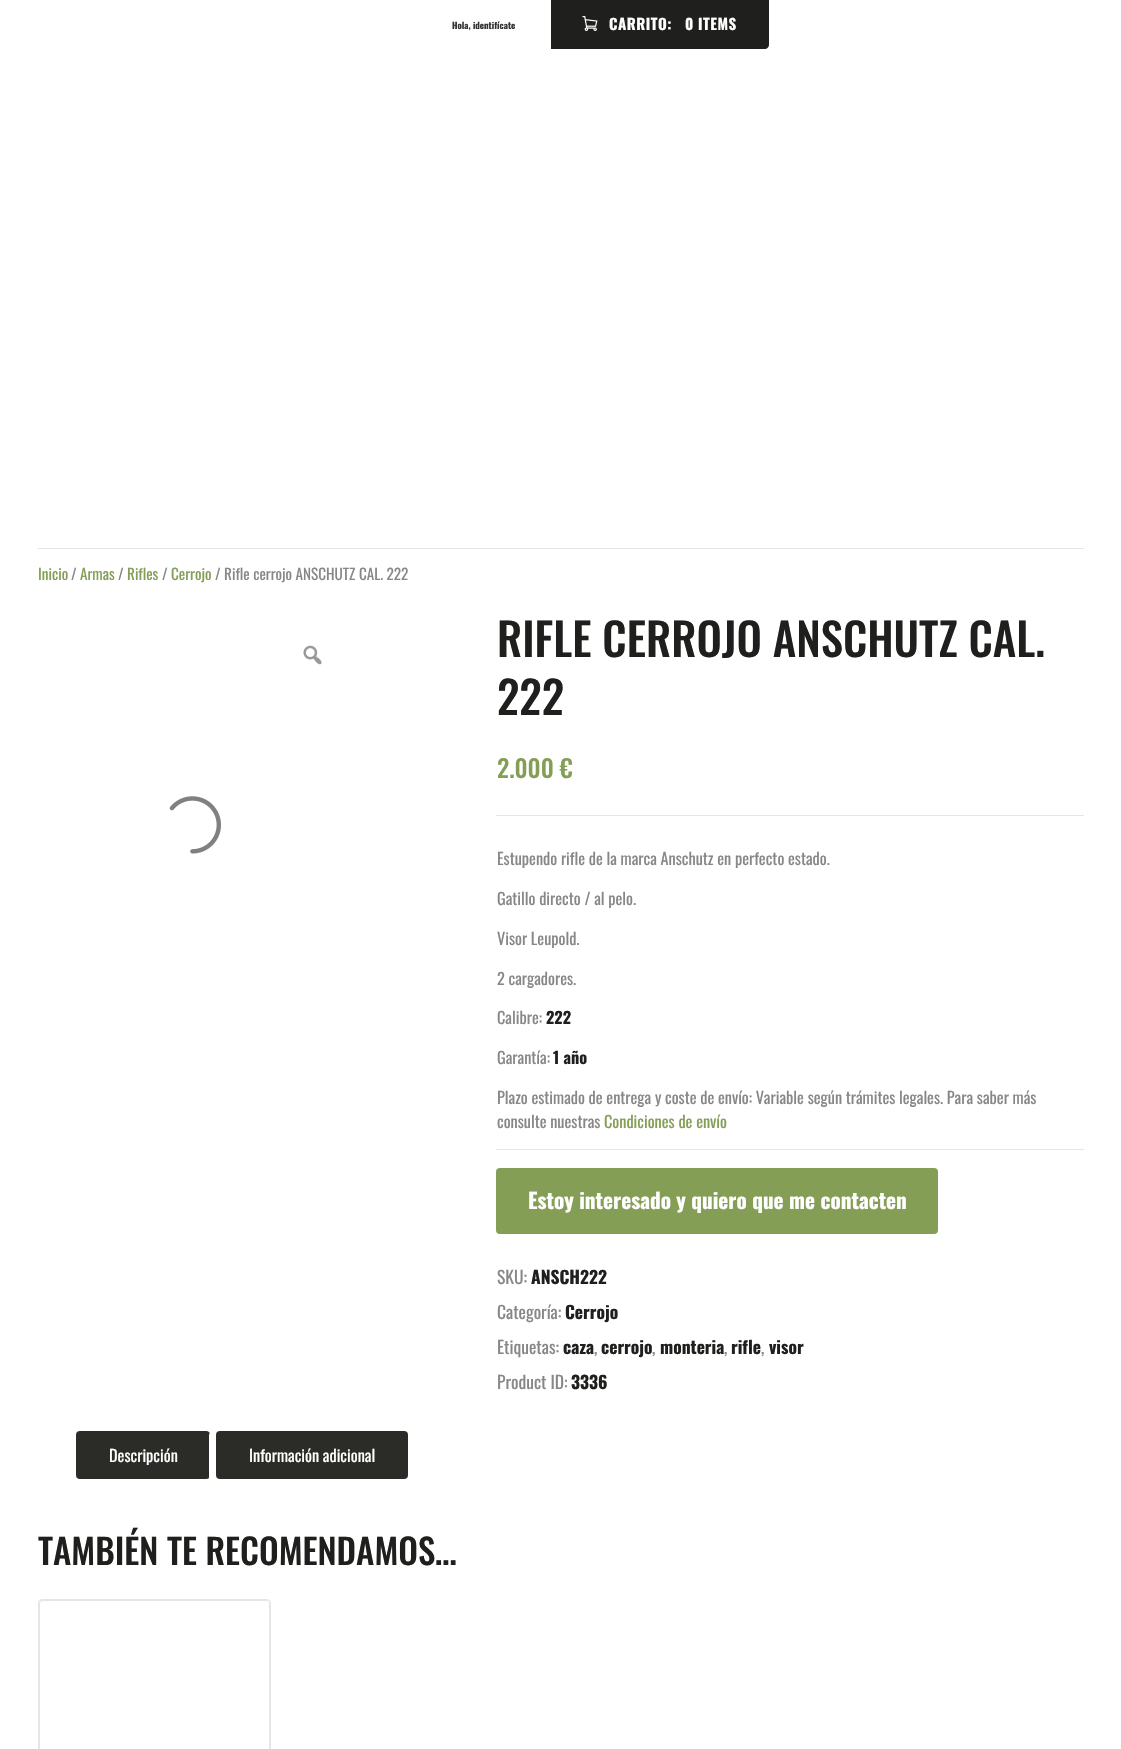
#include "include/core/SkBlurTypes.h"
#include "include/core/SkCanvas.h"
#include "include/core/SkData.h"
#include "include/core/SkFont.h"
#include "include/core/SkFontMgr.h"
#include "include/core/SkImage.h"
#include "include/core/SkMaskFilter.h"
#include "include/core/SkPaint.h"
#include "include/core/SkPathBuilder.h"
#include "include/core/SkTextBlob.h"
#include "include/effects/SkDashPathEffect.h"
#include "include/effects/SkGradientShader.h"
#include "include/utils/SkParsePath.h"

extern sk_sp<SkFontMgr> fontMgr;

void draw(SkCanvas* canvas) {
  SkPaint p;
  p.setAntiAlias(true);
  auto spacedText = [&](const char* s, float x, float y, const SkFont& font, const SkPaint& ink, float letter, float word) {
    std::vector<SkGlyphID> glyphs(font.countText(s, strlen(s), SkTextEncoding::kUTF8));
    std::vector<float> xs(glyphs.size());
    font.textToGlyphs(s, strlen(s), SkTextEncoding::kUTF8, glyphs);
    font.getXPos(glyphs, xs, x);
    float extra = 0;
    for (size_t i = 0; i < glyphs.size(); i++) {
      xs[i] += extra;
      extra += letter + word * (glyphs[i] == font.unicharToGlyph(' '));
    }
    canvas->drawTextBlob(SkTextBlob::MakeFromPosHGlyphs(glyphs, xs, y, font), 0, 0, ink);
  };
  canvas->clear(SK_ColorWHITE);
  p.setColor(SkColorSetRGB(31, 31, 29));
  canvas->drawPath(SkPathBuilder().moveTo(551, 0).lineTo(769, 0).lineTo(769, 45).cubicTo(769, 47, 767, 49, 765, 49).lineTo(551, 49).close().detach(), p);
  canvas->drawImageRect(SkImages::DeferredFromEncodedData(SkData::MakeFromFileName("images/1.png")), SkRect::MakeLTRB(582, 16, 598, 31), SkSamplingOptions());
  p.setColor(SkColorSetRGB(229, 229, 229));
  canvas->drawRect(SkRect::MakeLTRB(38, 548, 1084, 549), p);
  canvas->drawImageRect(SkImages::DeferredFromEncodedData(SkData::MakeFromFileName("images/2.png")), SkRect::MakeLTRB(303, 645, 322, 665), SkSamplingOptions());
  canvas->drawImageRect(SkImages::DeferredFromEncodedData(SkData::MakeFromFileName("images/3.png")), SkRect::MakeLTRB(169, 796, 221, 854), SkSamplingOptions());
  canvas->drawRect(SkRect::MakeLTRB(496, 815, 1084, 816), p);
  canvas->drawRect(SkRect::MakeLTRB(496, 1149, 1084, 1150), p);
  p.setColor(SkColorSetRGB(132, 158, 86));
  canvas->drawRoundRect(SkRect::MakeLTRB(496, 1168, 938, 1234), 4, 4, p);
  p.setColor(SkColorSetRGB(43, 43, 40));
  canvas->drawRoundRect(SkRect::MakeLTRB(76, 1431, 210, 1479), 4, 4, p);
  p.setColor(SK_ColorWHITE);
  canvas->drawPath(SkPathBuilder().moveTo(214, 1431).lineTo(410, 1431).cubicTo(413, 1431, 415, 1433, 415, 1436).lineTo(415, 1479).lineTo(209, 1479).lineTo(209, 1436).cubicTo(209, 1433, 211, 1431, 214, 1431).close().detach(), p);
  p.setColor(SkColorSetRGB(43, 43, 40));
  canvas->drawRoundRect(SkRect::MakeLTRB(216, 1431, 408, 1479), 4, 4, p);
  p.setStyle(SkPaint::kStroke_Style);
  p.setStrokeWidth(1);
  p.setColor(SkColorSetRGB(229, 229, 229));
  canvas->drawRoundRect(SkRect::MakeLTRB(38.5f, 1599.5f, 270.5f, 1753.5f), 3.5f, 3.5f, p);
  p.setStyle(SkPaint::kFill_Style);
  canvas->drawPath(SkPathBuilder(SkPathFillType::kEvenOdd).moveTo(42, 1600).lineTo(266, 1600).cubicTo(268, 1600, 270, 1602, 270, 1604).lineTo(270, 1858).lineTo(39, 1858).lineTo(39, 1604).cubicTo(39, 1602, 40, 1600, 42, 1600).close().moveTo(42, 1601).lineTo(266, 1601).cubicTo(268, 1601, 269, 1602, 269, 1604).lineTo(269, 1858).lineTo(40, 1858).lineTo(40, 1604).cubicTo(40, 1602, 41, 1601, 42, 1601).close().detach(), p);
  SkFont font1(fontMgr->matchFamilyStyle("Oswald", SkFontStyle::Bold()), 9);
  font1.setSubpixel(true);
  p.setColor(SkColorSetRGB(51, 51, 51));
  canvas->drawString("Hola, identifícate", 452, 29, font1, p);
  SkFont font2(fontMgr->matchFamilyStyle("Oswald", SkFontStyle::Bold()), 15);
  font2.setSubpixel(true);
  p.setColor(SK_ColorWHITE);
  spacedText("CARRITO:", 609, 30, font2, p, 0.5f, 0);
  spacedText("0 ITEMS", 685, 30, font2, p, 0.5f, 0);
  SkFont font3(fontMgr->matchFamilyStyle("Oswald", SkFontStyle::Normal()), 15.2f);
  font3.setSubpixel(true);
  p.setColor(SkColorSetRGB(132, 158, 86));
  canvas->drawString("Inicio", 38, 580, font3, p);
  p.setColor(SkColorSetRGB(135, 135, 134));
  canvas->drawString("/", 71, 580, font3, p);
  p.setColor(SkColorSetRGB(132, 158, 86));
  canvas->drawString("Armas", 80, 580, font3, p);
  p.setColor(SkColorSetRGB(135, 135, 134));
  canvas->drawString("/", 118, 580, font3, p);
  p.setColor(SkColorSetRGB(132, 158, 86));
  canvas->drawString("Rifles", 127, 580, font3, p);
  p.setColor(SkColorSetRGB(135, 135, 134));
  canvas->drawString("/", 162, 580, font3, p);
  p.setColor(SkColorSetRGB(132, 158, 86));
  canvas->drawString("Cerrojo", 171, 580, font3, p);
  p.setColor(SkColorSetRGB(135, 135, 134));
  canvas->drawString("/ Rifle cerrojo ANSCHUTZ CAL. 222", 215, 580, font3, p);
  SkFont font4(fontMgr->matchFamilyStyle("Oswald", SkFontStyle(500, SkFontStyle::kNormal_Width, SkFontStyle::kUpright_Slant)), 45);
  font4.setSubpixel(true);
  p.setColor(SkColorSetRGB(31, 31, 29));
  canvas->drawString("RIFLE CERROJO ANSCHUTZ CAL.", 497, 657, font4, p);
  canvas->drawString("222", 497, 715, font4, p);
  SkFont font5(fontMgr->matchFamilyStyle("Oswald", SkFontStyle(500, SkFontStyle::kNormal_Width, SkFontStyle::kUpright_Slant)), 24.5f);
  font5.setSubpixel(true);
  p.setColor(SkColorSetRGB(132, 158, 86));
  canvas->drawString("2.000 €", 497, 778, font5, p);
  SkFont font6(fontMgr->matchFamilyStyle("Oswald", SkFontStyle::Normal()), 16.25f);
  font6.setSubpixel(true);
  p.setColor(SkColorSetRGB(135, 135, 134));
  canvas->drawString("Estupendo rifle de la marca Anschutz en perfecto estado.", 497, 865, font6, p);
  canvas->drawString("Gatillo directo / al pelo.", 497, 905, font6, p);
  canvas->drawString("Visor Leupold.", 497, 945, font6, p);
  canvas->drawString("2 cargadores.", 497, 985, font6, p);
  canvas->drawString("Calibre:", 497, 1024, font6, p);
  SkFont font7(fontMgr->matchFamilyStyle("Oswald", SkFontStyle::Bold()), 16.25f);
  font7.setSubpixel(true);
  p.setColor(SkColorSetRGB(31, 31, 29));
  canvas->drawString("222", 546, 1024, font7, p);
  p.setColor(SkColorSetRGB(135, 135, 134));
  canvas->drawString("Garantía:", 497, 1064, font6, p);
  p.setColor(SkColorSetRGB(31, 31, 29));
  canvas->drawString("1 año", 553, 1064, font7, p);
  p.setColor(SkColorSetRGB(135, 135, 134));
  canvas->drawString("Plazo estimado de entrega y coste de envío: Variable según trámites legales. Para saber más", 497, 1104, font6, p);
  canvas->drawString("consulte nuestras", 497, 1128, font6, p);
  p.setColor(SkColorSetRGB(132, 158, 86));
  canvas->drawString("Condiciones de envío", 604, 1128, font6, p);
  SkFont font8(fontMgr->matchFamilyStyle("Oswald", SkFontStyle::Bold()), 21.25f);
  font8.setSubpixel(true);
  p.setColor(SK_ColorWHITE);
  canvas->drawString("Estoy interesado y quiero que me contacten", 528, 1209, font8, p);
  SkFont font9(fontMgr->matchFamilyStyle("Oswald", SkFontStyle::Normal()), 17.5f);
  font9.setSubpixel(true);
  p.setColor(SkColorSetRGB(135, 135, 134));
  canvas->drawString("SKU:", 497, 1284, font9, p);
  SkFont font10(fontMgr->matchFamilyStyle("Oswald", SkFontStyle::Bold()), 17.5f);
  font10.setSubpixel(true);
  p.setColor(SkColorSetRGB(31, 31, 29));
  canvas->drawString("ANSCH222", 531, 1284, font10, p);
  p.setColor(SkColorSetRGB(135, 135, 134));
  canvas->drawString("Categoría:", 497, 1319, font9, p);
  p.setColor(SkColorSetRGB(31, 31, 29));
  canvas->drawString("Cerrojo", 565, 1319, font10, p);
  p.setColor(SkColorSetRGB(135, 135, 134));
  canvas->drawString("Etiquetas:", 497, 1354, font9, p);
  p.setColor(SkColorSetRGB(31, 31, 29));
  canvas->drawString("caza", 563, 1354, font10, p);
  p.setColor(SkColorSetRGB(135, 135, 134));
  canvas->drawString(",", 594, 1354, font9, p);
  p.setColor(SkColorSetRGB(31, 31, 29));
  canvas->drawString("cerrojo", 601, 1354, font10, p);
  p.setColor(SkColorSetRGB(135, 135, 134));
  canvas->drawString(",", 652, 1354, font9, p);
  p.setColor(SkColorSetRGB(31, 31, 29));
  canvas->drawString("monteria", 660, 1354, font10, p);
  p.setColor(SkColorSetRGB(135, 135, 134));
  canvas->drawString(",", 724, 1354, font9, p);
  p.setColor(SkColorSetRGB(31, 31, 29));
  canvas->drawString("rifle", 731, 1354, font10, p);
  p.setColor(SkColorSetRGB(135, 135, 134));
  canvas->drawString(",", 761, 1354, font9, p);
  p.setColor(SkColorSetRGB(31, 31, 29));
  canvas->drawString("visor", 769, 1354, font10, p);
  p.setColor(SkColorSetRGB(135, 135, 134));
  canvas->drawString("Product ID:", 497, 1389, font9, p);
  p.setColor(SkColorSetRGB(31, 31, 29));
  canvas->drawString("3336", 571, 1389, font10, p);
  p.setColor(SK_ColorWHITE);
  canvas->drawString("Descripción", 109, 1462, font6, p);
  canvas->drawString("Información adicional", 249, 1462, font6, p);
  SkFont font11(fontMgr->matchFamilyStyle("Oswald", SkFontStyle(500, SkFontStyle::kNormal_Width, SkFontStyle::kUpright_Slant)), 35);
  font11.setSubpixel(true);
  p.setColor(SkColorSetRGB(31, 31, 29));
  canvas->drawString("TAMBIÉN TE RECOMENDAMOS…", 38, 1565, font11, p);
}
